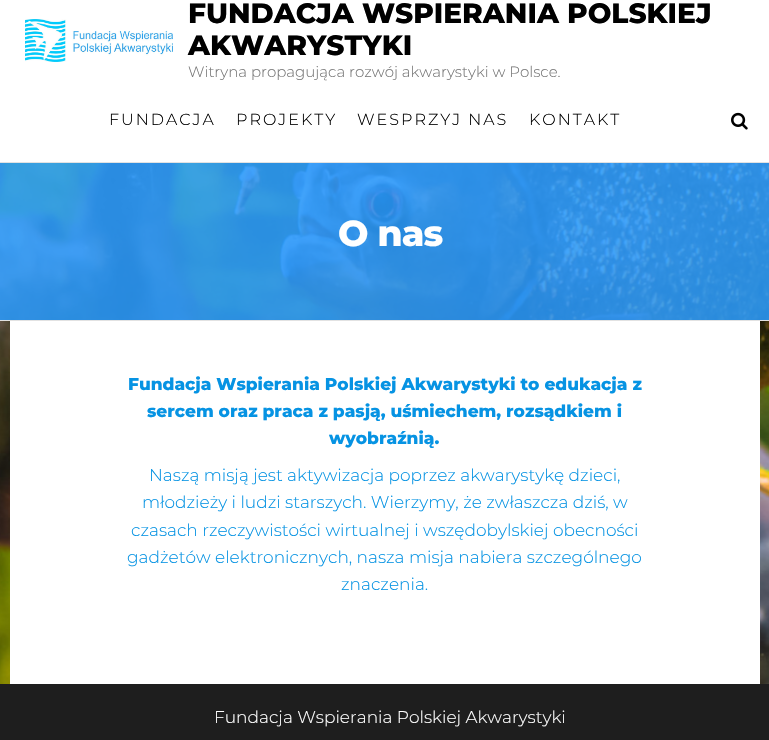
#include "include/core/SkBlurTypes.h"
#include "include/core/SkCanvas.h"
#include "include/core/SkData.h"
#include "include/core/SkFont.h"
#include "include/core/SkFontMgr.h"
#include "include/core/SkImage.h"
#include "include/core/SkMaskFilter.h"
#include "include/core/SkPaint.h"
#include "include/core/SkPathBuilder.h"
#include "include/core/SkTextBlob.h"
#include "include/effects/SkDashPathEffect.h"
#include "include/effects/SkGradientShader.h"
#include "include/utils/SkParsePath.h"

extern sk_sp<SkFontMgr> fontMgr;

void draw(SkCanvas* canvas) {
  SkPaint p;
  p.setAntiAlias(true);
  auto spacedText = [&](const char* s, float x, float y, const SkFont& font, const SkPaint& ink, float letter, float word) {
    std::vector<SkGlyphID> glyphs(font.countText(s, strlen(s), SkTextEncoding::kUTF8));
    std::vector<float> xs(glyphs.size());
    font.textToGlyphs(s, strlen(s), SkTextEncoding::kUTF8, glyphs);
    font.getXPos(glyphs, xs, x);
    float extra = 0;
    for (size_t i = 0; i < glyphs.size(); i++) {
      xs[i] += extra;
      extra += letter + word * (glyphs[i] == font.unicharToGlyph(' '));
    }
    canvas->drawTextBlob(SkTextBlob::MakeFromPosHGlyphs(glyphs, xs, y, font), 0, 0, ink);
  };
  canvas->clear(SK_ColorWHITE);
  canvas->drawImageRect(SkImages::DeferredFromEncodedData(SkData::MakeFromFileName("images/1.png")), SkRect::MakeLTRB(0, 163, 769, 684), SkSamplingOptions());
  p.setColor(SkColorSetRGB(226, 226, 226));
  canvas->drawRect(SkRect::MakeLTRB(0, 162, 769, 163), p);
  canvas->drawImageRect(SkImages::DeferredFromEncodedData(SkData::MakeFromFileName("images/2.png")), SkRect::MakeLTRB(25, 19, 173, 62), SkSamplingOptions());
  canvas->drawImageRect(SkImages::DeferredFromEncodedData(SkData::MakeFromFileName("images/3.png")), SkRect::MakeLTRB(731, 112, 748, 130), SkSamplingOptions());
  canvas->drawRect(SkRect::MakeLTRB(0, 320, 769, 321), p);
  p.setColor(SkColorSetARGB(224, 41, 152, 249));
  canvas->drawRect(SkRect::MakeLTRB(0, 163, 769, 320), p);
  p.setColor(SK_ColorWHITE);
  canvas->drawRect(SkRect::MakeLTRB(10, 321, 760, 684), p);
  p.setColor(SkColorSetRGB(30, 30, 30));
  canvas->drawRect(SkRect::MakeLTRB(0, 684, 769, 740), p);
  SkFont font1(fontMgr->matchFamilyStyle("Montserrat", SkFontStyle(800, SkFontStyle::kNormal_Width, SkFontStyle::kUpright_Slant)), 28);
  font1.setSubpixel(true);
  p.setColor(SK_ColorBLACK);
  canvas->drawString("FUNDACJA WSPIERANIA POLSKIEJ", 188, 23, font1, p);
  canvas->drawString("AKWARYSTYKI", 188, 55, font1, p);
  SkFont font2(fontMgr->matchFamilyStyle("Montserrat", SkFontStyle(300, SkFontStyle::kNormal_Width, SkFontStyle::kUpright_Slant)), 15);
  font2.setSubpixel(true);
  p.setColor(SkColorSetRGB(119, 119, 119));
  canvas->drawString("Witryna propagująca rozwój akwarystyki w Polsce.", 188, 77, font2, p);
  SkFont font3(fontMgr->matchFamilyStyle("Montserrat", SkFontStyle(300, SkFontStyle::kNormal_Width, SkFontStyle::kUpright_Slant)), 16);
  font3.setSubpixel(true);
  p.setColor(SK_ColorBLACK);
  spacedText("FUNDACJA", 109, 125, font3, p, 2, 0);
  spacedText("PROJEKTY", 236, 125, font3, p, 2, 0);
  spacedText("WESPRZYJ NAS", 357, 125, font3, p, 2, 0);
  spacedText("KONTAKT", 529, 125, font3, p, 2, 0);
  SkFont font4(fontMgr->matchFamilyStyle("Montserrat", SkFontStyle(800, SkFontStyle::kNormal_Width, SkFontStyle::kUpright_Slant)), 36);
  font4.setSubpixel(true);
  p.setColor(SK_ColorWHITE);
  spacedText("O nas", 338, 246, font4, p, -0.75f, 0);
  SkFont font5(fontMgr->matchFamilyStyle("Montserrat", SkFontStyle(800, SkFontStyle::kNormal_Width, SkFontStyle::kUpright_Slant)), 17);
  font5.setSubpixel(true);
  p.setColor(SkColorSetRGB(6, 147, 227));
  canvas->drawString("Fundacja Wspierania Polskiej Akwarystyki to edukacja z", 128, 390, font5, p);
  canvas->drawString("sercem oraz praca z pasją, uśmiechem, rozsądkiem i", 147, 417, font5, p);
  canvas->drawString("wyobraźnią.", 329, 444, font5, p);
  SkFont font6(fontMgr->matchFamilyStyle("Montserrat", SkFontStyle(300, SkFontStyle::kNormal_Width, SkFontStyle::kUpright_Slant)), 17);
  font6.setSubpixel(true);
  canvas->drawString("Naszą misją jest aktywizacja poprzez akwarystykę dzieci,", 149, 481, font6, p);
  canvas->drawString("młodzieży i ludzi starszych. Wierzymy, że zwłaszcza dziś, w", 142, 508, font6, p);
  canvas->drawString("czasach rzeczywistości wirtualnej i wszędobylskiej obecności", 131, 536, font6, p);
  canvas->drawString("gadżetów elektronicznych, nasza misja nabiera szczególnego", 127, 563, font6, p);
  canvas->drawString("znaczenia.", 341, 590, font6, p);
  p.setColor(SK_ColorWHITE);
  canvas->drawString("Fundacja Wspierania Polskiej Akwarystyki", 214, 723, font6, p);
}
